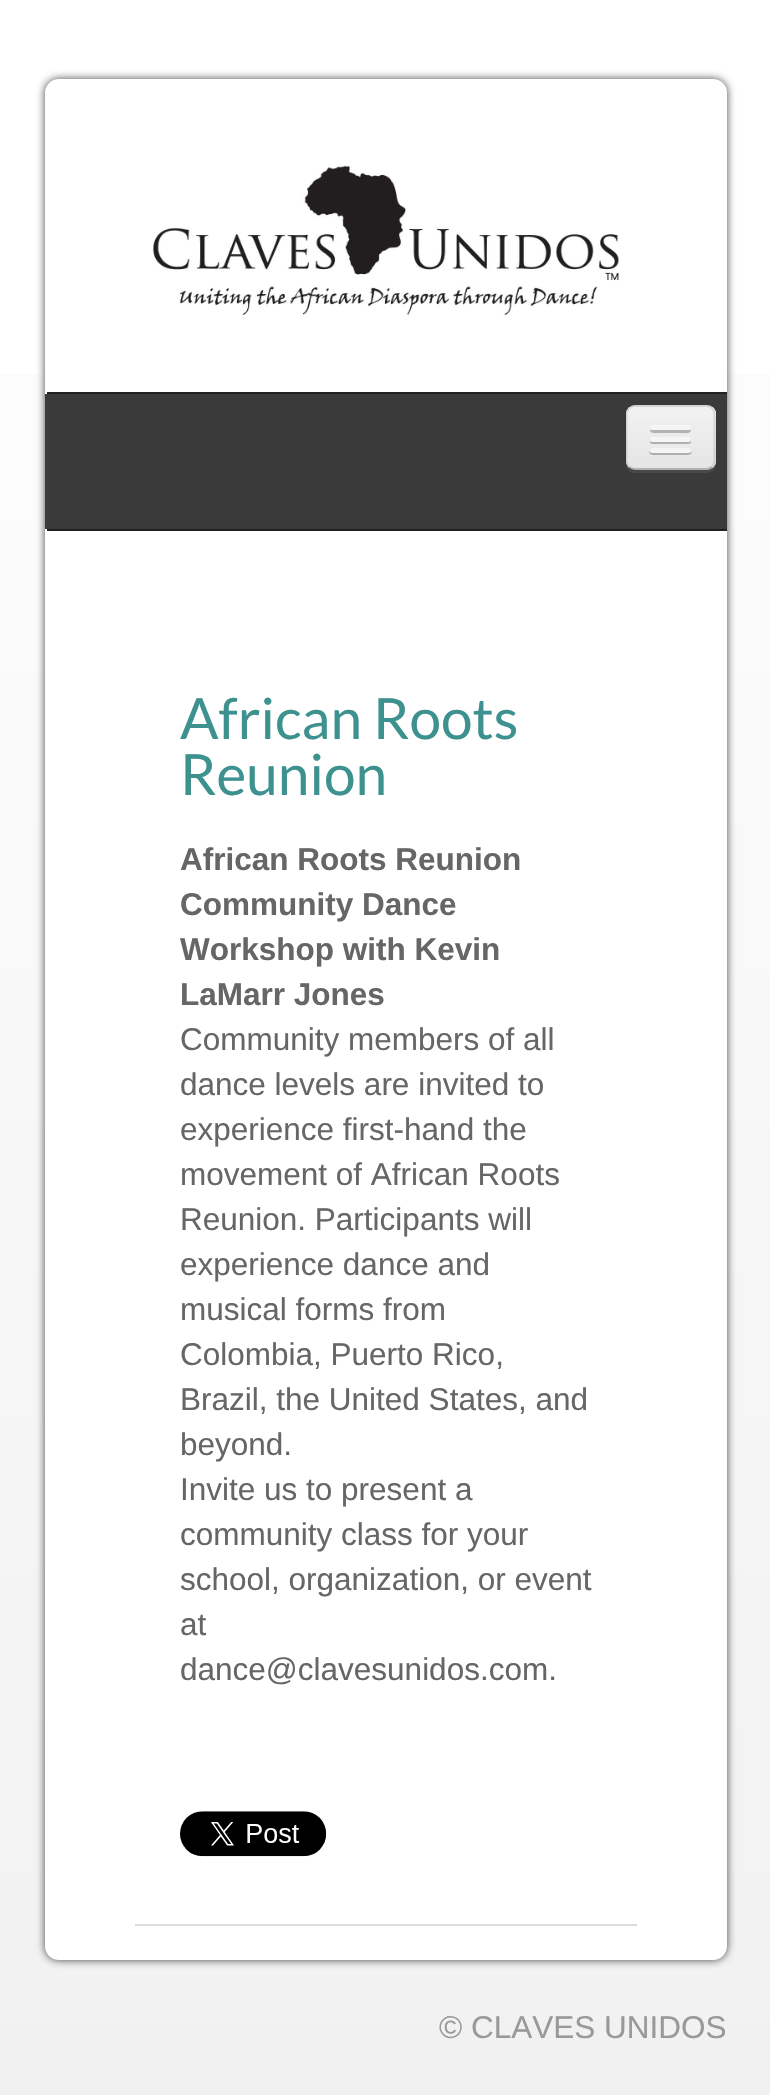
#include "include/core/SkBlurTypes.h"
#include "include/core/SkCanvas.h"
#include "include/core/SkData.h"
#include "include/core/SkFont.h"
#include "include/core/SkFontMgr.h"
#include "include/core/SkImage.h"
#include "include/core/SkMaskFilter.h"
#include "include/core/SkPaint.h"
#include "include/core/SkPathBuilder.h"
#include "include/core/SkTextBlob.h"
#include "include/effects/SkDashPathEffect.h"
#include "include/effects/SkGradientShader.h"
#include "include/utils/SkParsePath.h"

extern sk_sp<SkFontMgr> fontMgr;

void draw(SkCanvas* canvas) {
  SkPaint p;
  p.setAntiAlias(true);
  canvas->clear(SK_ColorWHITE);
  {
    const SkColor colors[] = {SK_ColorWHITE, SkColorSetRGB(241, 241, 241)};
    const float stops[] = {0, 1};
    const SkPoint ends[] = {{169, 0}, {169, 2095}};
    p.setShader(SkGradientShader::MakeLinear(ends, colors, stops, 2, SkTileMode::kClamp));
    p.setAlpha(255);
  }
  canvas->drawRect(SkRect::MakeLTRB(0, 374, 770, 2095), p);
  p.setShader(nullptr);
  p.setColor(SkColorSetRGB(68, 68, 68));
  p.setMaskFilter(SkMaskFilter::MakeBlur(kNormal_SkBlurStyle, 4.5f));
  canvas->drawRoundRect(SkRect::MakeLTRB(45, 79, 727, 1960), 14, 14, p);
  p.setMaskFilter(nullptr);
  p.setColor(SK_ColorWHITE);
  canvas->drawRoundRect(SkRect::MakeLTRB(45, 79, 727, 1960), 14, 14, p);
  canvas->drawImageRect(SkImages::DeferredFromEncodedData(SkData::MakeFromFileName("images/1.png")), SkRect::MakeLTRB(153, 165, 619, 316), SkSamplingOptions());
  p.setColor(SkColorSetRGB(58, 58, 58));
  canvas->drawPath(SkPathBuilder().moveTo(47, 394).lineTo(727, 394).lineTo(727, 529).lineTo(45, 529).lineTo(45, 394).close().detach(), p);
  p.setColor(SkColorSetRGB(33, 33, 33));
  canvas->drawRect(SkRect::MakeLTRB(47, 392, 727, 394), p);
  canvas->drawRect(SkRect::MakeLTRB(47, 529, 727, 531), p);
  p.setColor(SkColorSetRGB(73, 73, 73));
  canvas->drawPath(SkPathBuilder().moveTo(626, 464).cubicTo(626, 469, 630, 473, 635, 473).lineTo(707, 473).cubicTo(712, 473, 716, 469, 716, 464).lineTo(716, 416).lineTo(715, 413).lineTo(715, 463).lineTo(714, 466).cubicTo(710, 472, 700, 470, 694, 470).lineTo(646, 470).cubicTo(640, 470, 629, 473, 626, 464).close().detach(), p);
  p.setColor(SkColorSetRGB(237, 237, 237));
  canvas->drawRoundRect(SkRect::MakeLTRB(626, 405, 716, 470), 9, 9, p);
  canvas->save();
  canvas->clipPath(SkPathBuilder().moveTo(635, 405).lineTo(707, 405).cubicTo(712, 405, 716, 409, 716, 414).lineTo(716, 461).cubicTo(716, 466, 712, 470, 707, 470).lineTo(635, 470).cubicTo(630, 470, 626, 466, 626, 461).lineTo(626, 414).cubicTo(626, 409, 630, 405, 635, 405).close().detach(), true);
  {
    const SkColor colors[] = {SkColorSetRGB(242, 242, 242), SkColorSetRGB(229, 229, 229)};
    const float stops[] = {0, 1};
    const SkPoint ends[] = {{671, 407}, {671, 468}};
    p.setShader(SkGradientShader::MakeLinear(ends, colors, stops, 2, SkTileMode::kClamp));
    p.setAlpha(255);
  }
  canvas->drawRect(SkRect::MakeLTRB(626, 407, 716, 468), p);
  canvas->restore();
  p.setStyle(SkPaint::kStroke_Style);
  p.setStrokeWidth(2.2f);
  p.setShader(nullptr);
  p.setColor(SkColorSetARGB(64, 0, 0, 0));
  canvas->drawPath(SkPathBuilder().moveTo(712, 467).cubicTo(710.5f, 468.5f, 708.5f, 469, 706.5f, 469).lineTo(634.5f, 469).cubicTo(632.5f, 469, 630.5f, 468.5f, 629, 467).detach(), p);
  p.setColor(SkColorSetARGB(26, 0, 0, 0));
  canvas->drawPath(SkPathBuilder().moveTo(629, 467).cubicTo(627.5f, 465.5f, 626.5f, 463.5f, 626.5f, 461).lineTo(626.5f, 414).cubicTo(626.5f, 412, 627.5f, 410, 629, 408.5f).cubicTo(630.5f, 407, 632.5f, 406, 634.5f, 406).lineTo(706.5f, 406).cubicTo(708.5f, 406, 710.5f, 407, 712, 408.5f).cubicTo(713.5f, 410, 714.5f, 412, 714.5f, 414).lineTo(714.5f, 461).cubicTo(714.5f, 463.5f, 713.5f, 465.5f, 712, 467).detach(), p);
  p.setStyle(SkPaint::kFill_Style);
  p.setColor(SkColorSetRGB(178, 178, 178));
  canvas->drawPath(SkPathBuilder().moveTo(651, 429).lineTo(650, 431).cubicTo(651, 434, 657, 433, 658, 433).lineTo(682, 433).cubicTo(684, 433, 690, 434, 691, 431).lineTo(690, 429).lineTo(689, 430).lineTo(652, 430).close().detach(), p);
  p.setColor(SkColorSetRGB(245, 245, 245));
  canvas->drawRoundRect(SkRect::MakeLTRB(650, 425, 691, 430), 2.5f, 2.5f, p);
  p.setColor(SkColorSetRGB(176, 176, 176));
  canvas->drawPath(SkPathBuilder().moveTo(651, 440).cubicTo(646, 445, 658, 444, 658, 444).lineTo(682, 444).cubicTo(683, 444, 695, 445, 690, 440).lineTo(689, 441).lineTo(652, 441).close().detach(), p);
  p.setColor(SkColorSetRGB(245, 245, 245));
  canvas->drawRoundRect(SkRect::MakeLTRB(650, 437, 691, 442), 2.5f, 2.5f, p);
  p.setColor(SkColorSetRGB(174, 174, 174));
  canvas->drawPath(SkPathBuilder().moveTo(650, 451).cubicTo(647, 456, 658, 455, 658, 455).lineTo(682, 455).cubicTo(683, 455, 694, 456, 691, 451).cubicTo(690, 452, 689, 452, 688, 452).lineTo(652, 452).cubicTo(652, 452, 651, 452, 650, 451).close().detach(), p);
  p.setColor(SkColorSetRGB(245, 245, 245));
  canvas->drawRoundRect(SkRect::MakeLTRB(650, 448, 691, 453), 2.5f, 2.5f, p);
  p.setColor(SkColorSetRGB(221, 221, 221));
  canvas->drawRect(SkRect::MakeLTRB(135, 1924, 637, 1926), p);
  canvas->drawImageRect(SkImages::DeferredFromEncodedData(SkData::MakeFromFileName("images/2.png")), SkRect::MakeLTRB(180, 1811, 327, 1857), SkSamplingOptions());
  SkFont font1(fontMgr->matchFamilyStyle("Lato", SkFontStyle::Normal()), 56.75f);
  font1.setSubpixel(true);
  p.setColor(SkColorSetRGB(61, 145, 142));
  canvas->drawString("African Roots", 180, 739, font1, p);
  canvas->drawString("Reunion", 180, 795, font1, p);
  SkFont font2(fontMgr->matchFamilyStyle("Liberation Sans", SkFontStyle::Bold()), 31.5f);
  font2.setSubpixel(true);
  p.setColor(SkColorSetRGB(102, 102, 102));
  canvas->drawString("African Roots Reunion", 180, 870, font2, p);
  canvas->drawString("Community Dance", 180, 915, font2, p);
  canvas->drawString("Workshop with Kevin", 180, 960, font2, p);
  canvas->drawString("LaMarr Jones", 180, 1005, font2, p);
  SkFont font3(fontMgr->matchFamilyStyle("Liberation Sans", SkFontStyle::Normal()), 31.5f);
  font3.setSubpixel(true);
  canvas->drawString("Community members of all", 180, 1050, font3, p);
  canvas->drawString("dance levels are invited to", 180, 1095, font3, p);
  canvas->drawString("experience first-hand the", 180, 1140, font3, p);
  canvas->drawString("movement of African Roots", 180, 1185, font3, p);
  canvas->drawString("Reunion. Participants will", 180, 1230, font3, p);
  canvas->drawString("experience dance and", 180, 1275, font3, p);
  canvas->drawString("musical forms from", 180, 1320, font3, p);
  canvas->drawString("Colombia, Puerto Rico,", 180, 1365, font3, p);
  canvas->drawString("Brazil, the United States, and", 180, 1410, font3, p);
  canvas->drawString("beyond.", 180, 1455, font3, p);
  canvas->drawString("Invite us to present a", 180, 1500, font3, p);
  canvas->drawString("community class for your", 180, 1545, font3, p);
  canvas->drawString("school, organization, or event", 180, 1590, font3, p);
  canvas->drawString("at", 180, 1635, font3, p);
  canvas->drawString("dance@clavesunidos.com.", 180, 1680, font3, p);
  p.setColor(SkColorSetRGB(153, 153, 153));
  canvas->drawString("© CLAVES UNIDOS", 439, 2038, font3, p);
}
